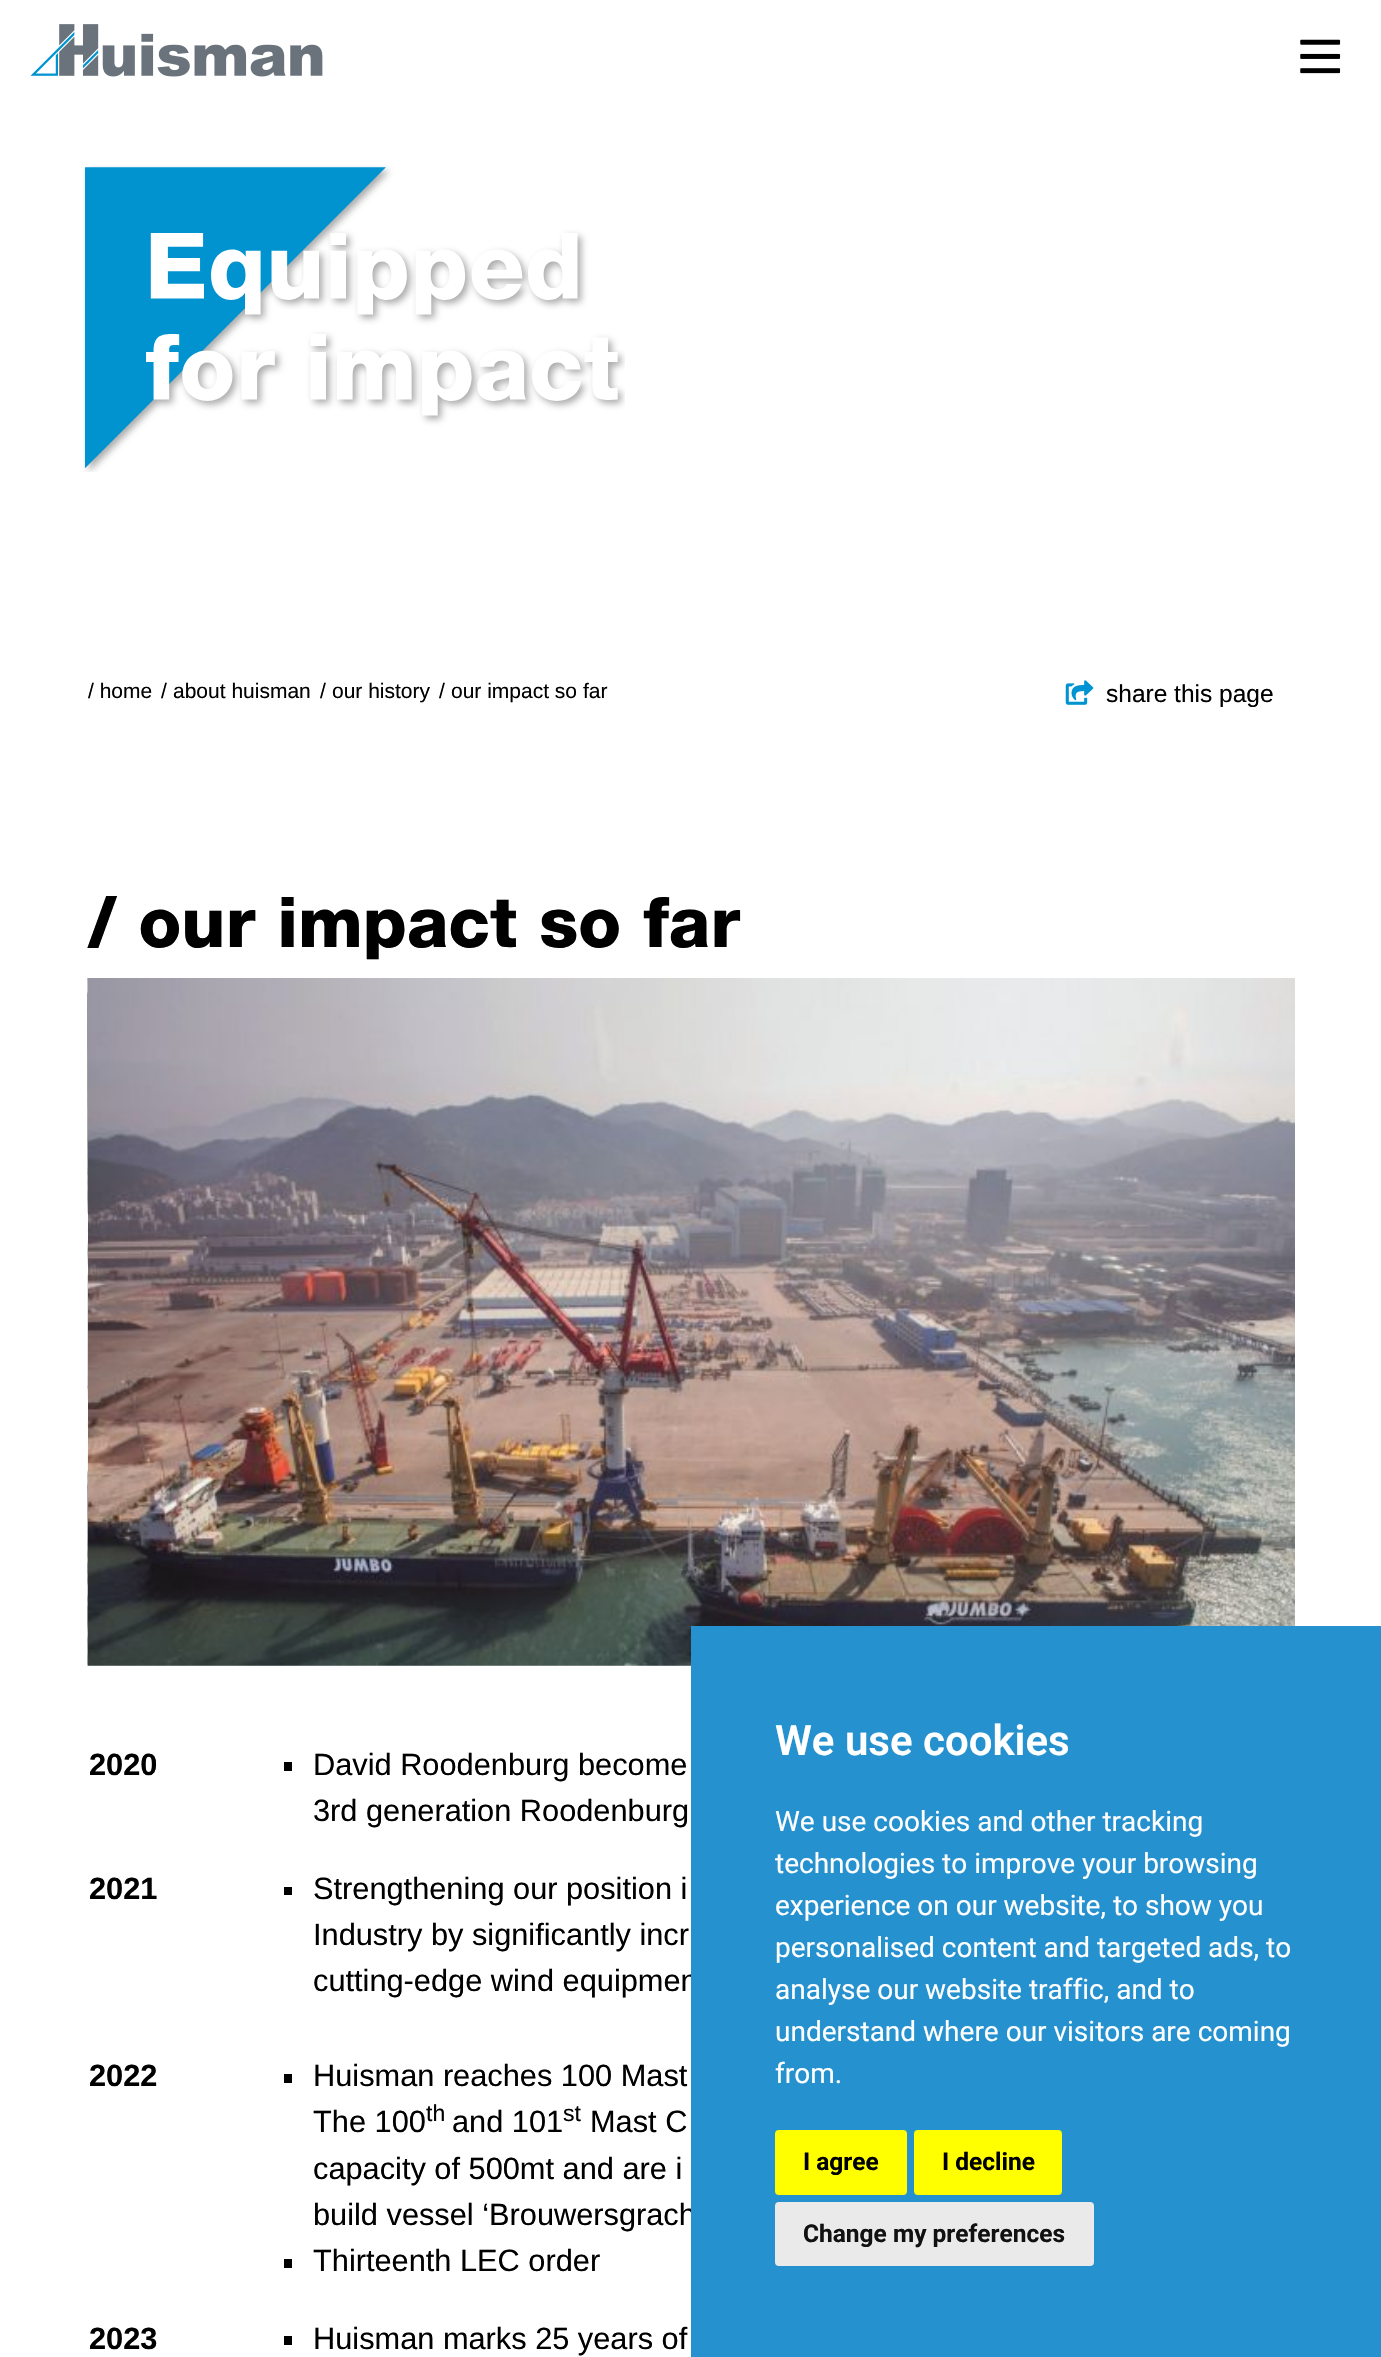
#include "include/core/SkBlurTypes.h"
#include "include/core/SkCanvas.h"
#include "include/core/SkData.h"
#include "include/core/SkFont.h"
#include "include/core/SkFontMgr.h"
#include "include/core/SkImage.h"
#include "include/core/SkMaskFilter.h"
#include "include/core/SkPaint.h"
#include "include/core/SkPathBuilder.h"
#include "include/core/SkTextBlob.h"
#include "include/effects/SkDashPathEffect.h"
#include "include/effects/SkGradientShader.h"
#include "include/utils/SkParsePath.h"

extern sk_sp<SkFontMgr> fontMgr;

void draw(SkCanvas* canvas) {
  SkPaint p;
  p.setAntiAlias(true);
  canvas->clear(SK_ColorWHITE);
  canvas->drawImageRect(SkImages::DeferredFromEncodedData(SkData::MakeFromFileName("images/1.png")), SkRect::MakeLTRB(30, 24, 323, 77), SkSamplingOptions());
  canvas->drawImageRect(SkImages::DeferredFromEncodedData(SkData::MakeFromFileName("images/2.png")), SkRect::MakeLTRB(1300, 39, 1341, 74), SkSamplingOptions());
  canvas->drawImageRect(SkImages::DeferredFromEncodedData(SkData::MakeFromFileName("images/3.png")), SkRect::MakeLTRB(83, 165, 625, 472), SkSamplingOptions());
  canvas->drawImageRect(SkImages::DeferredFromEncodedData(SkData::MakeFromFileName("images/4.png")), SkRect::MakeLTRB(1065, 680, 1094, 705), SkSamplingOptions());
  canvas->drawImageRect(SkImages::DeferredFromEncodedData(SkData::MakeFromFileName("images/5.png")), SkRect::MakeLTRB(87, 978, 88, 1666), SkSamplingOptions());
  canvas->drawImageRect(SkImages::DeferredFromEncodedData(SkData::MakeFromFileName("images/6.png")), SkRect::MakeLTRB(88, 978, 1295, 1666), SkSamplingOptions());
  p.setColor(SK_ColorBLACK);
  canvas->drawRect(SkRect::MakeLTRB(284, 1762, 292, 1771), p);
  canvas->drawRect(SkRect::MakeLTRB(284, 1887, 292, 1895), p);
  canvas->drawRect(SkRect::MakeLTRB(284, 2074, 292, 2083), p);
  canvas->drawRect(SkRect::MakeLTRB(284, 2259, 292, 2268), p);
  canvas->drawRect(SkRect::MakeLTRB(284, 2336, 292, 2345), p);
  SkFont font1(fontMgr->matchFamilyStyle("Liberation Sans", SkFontStyle::Normal()), 21);
  font1.setSubpixel(true);
  canvas->drawString("/ home", 88, 698, font1, p);
  canvas->drawString("/", 161, 698, font1, p);
  canvas->drawString("about huisman", 173, 698, font1, p);
  canvas->drawString("/", 320, 698, font1, p);
  canvas->drawString("our history", 332, 698, font1, p);
  canvas->drawString("/", 439, 698, font1, p);
  canvas->drawString("our impact so far", 451, 698, font1, p);
  SkFont font2(fontMgr->matchFamilyStyle("Liberation Sans", SkFontStyle::Normal()), 24.5f);
  font2.setSubpixel(true);
  canvas->drawString("share this page", 1106, 702, font2, p);
  SkFont font3(fontMgr->matchFamilyStyle("Helvetica Neue", SkFontStyle(900, SkFontStyle::kNormal_Width, SkFontStyle::kUpright_Slant)), 70);
  font3.setSubpixel(true);
  canvas->drawString("/ our impact so far", 88, 947, font3, p);
  SkFont font4(fontMgr->matchFamilyStyle("Liberation Sans", SkFontStyle::Bold()), 30.75f);
  font4.setSubpixel(true);
  canvas->drawString("2020", 89, 1775, font4, p);
  SkFont font5(fontMgr->matchFamilyStyle("Liberation Sans", SkFontStyle::Normal()), 30.75f);
  font5.setSubpixel(true);
  canvas->drawString("David Roodenburg become", 313, 1775, font5, p);
  canvas->drawString("3rd generation Roodenburg", 313, 1821, font5, p);
  canvas->drawString("2021", 89, 1899, font4, p);
  canvas->drawString("Strengthening our position i", 313, 1899, font5, p);
  canvas->drawString("Industry by significantly incr", 313, 1945, font5, p);
  canvas->drawString("cutting-edge wind equipmen", 313, 1991, font5, p);
  canvas->drawString("2022", 89, 2086, font4, p);
  canvas->drawString("Huisman reaches 100 Mast", 313, 2086, font5, p);
  canvas->drawString("The 100", 313, 2132, font5, p);
  SkFont font6(fontMgr->matchFamilyStyle("Liberation Sans", SkFontStyle::Normal()), 23);
  font6.setSubpixel(true);
  canvas->drawString("th", 426, 2121, font6, p);
  canvas->drawString("and 101", 452, 2132, font5, p);
  canvas->drawString("st", 563, 2121, font6, p);
  canvas->drawString("Mast C", 590, 2132, font5, p);
  canvas->drawString("capacity of 500mt and are i", 313, 2179, font5, p);
  canvas->drawString("build vessel ‘Brouwersgrach", 313, 2225, font5, p);
  canvas->drawString("Thirteenth LEC order", 313, 2271, font5, p);
  canvas->drawString("2023", 89, 2349, font4, p);
  canvas->drawString("Huisman marks 25 years of", 313, 2349, font5, p);
  p.setColor(SkColorSetRGB(37, 145, 206));
  canvas->drawRect(SkRect::MakeLTRB(691, 1626, 1381, 2357), p);
  SkFont font7(fontMgr->matchFamilyStyle("Roboto", SkFontStyle(600, SkFontStyle::kNormal_Width, SkFontStyle::kUpright_Slant)), 42);
  font7.setSubpixel(true);
  p.setColor(SK_ColorWHITE);
  canvas->drawString("We use cookies", 775, 1755, font7, p);
  SkFont font8(fontMgr->matchFamilyStyle("Roboto", SkFontStyle::Normal()), 28);
  font8.setSubpixel(true);
  canvas->drawString("We use cookies and other tracking", 775, 1831, font8, p);
  canvas->drawString("technologies to improve your browsing", 775, 1873, font8, p);
  canvas->drawString("experience on our website, to show you", 775, 1915, font8, p);
  canvas->drawString("personalised content and targeted ads, to", 775, 1957, font8, p);
  canvas->drawString("analyse our website traffic, and to", 775, 1999, font8, p);
  canvas->drawString("understand where our visitors are coming", 775, 2041, font8, p);
  canvas->drawString("from.", 775, 2083, font8, p);
  p.setColor(SkColorSetRGB(255, 255, 0));
  canvas->drawRoundRect(SkRect::MakeLTRB(775, 2130, 907, 2195), 4, 4, p);
  SkFont font9(fontMgr->matchFamilyStyle("Roboto", SkFontStyle::Bold()), 24.5f);
  font9.setSubpixel(true);
  p.setColor(SK_ColorBLACK);
  canvas->drawString("I agree", 803, 2170, font9, p);
  p.setColor(SkColorSetRGB(255, 255, 0));
  canvas->drawRoundRect(SkRect::MakeLTRB(914, 2130, 1062, 2195), 4, 4, p);
  p.setColor(SK_ColorBLACK);
  canvas->drawString("I decline", 942, 2170, font9, p);
  p.setColor(SkColorSetRGB(234, 234, 234));
  canvas->drawRoundRect(SkRect::MakeLTRB(775, 2202, 1094, 2266), 4, 4, p);
  p.setColor(SkColorSetRGB(17, 17, 17));
  canvas->drawString("Change my preferences", 803, 2242, font9, p);
}
